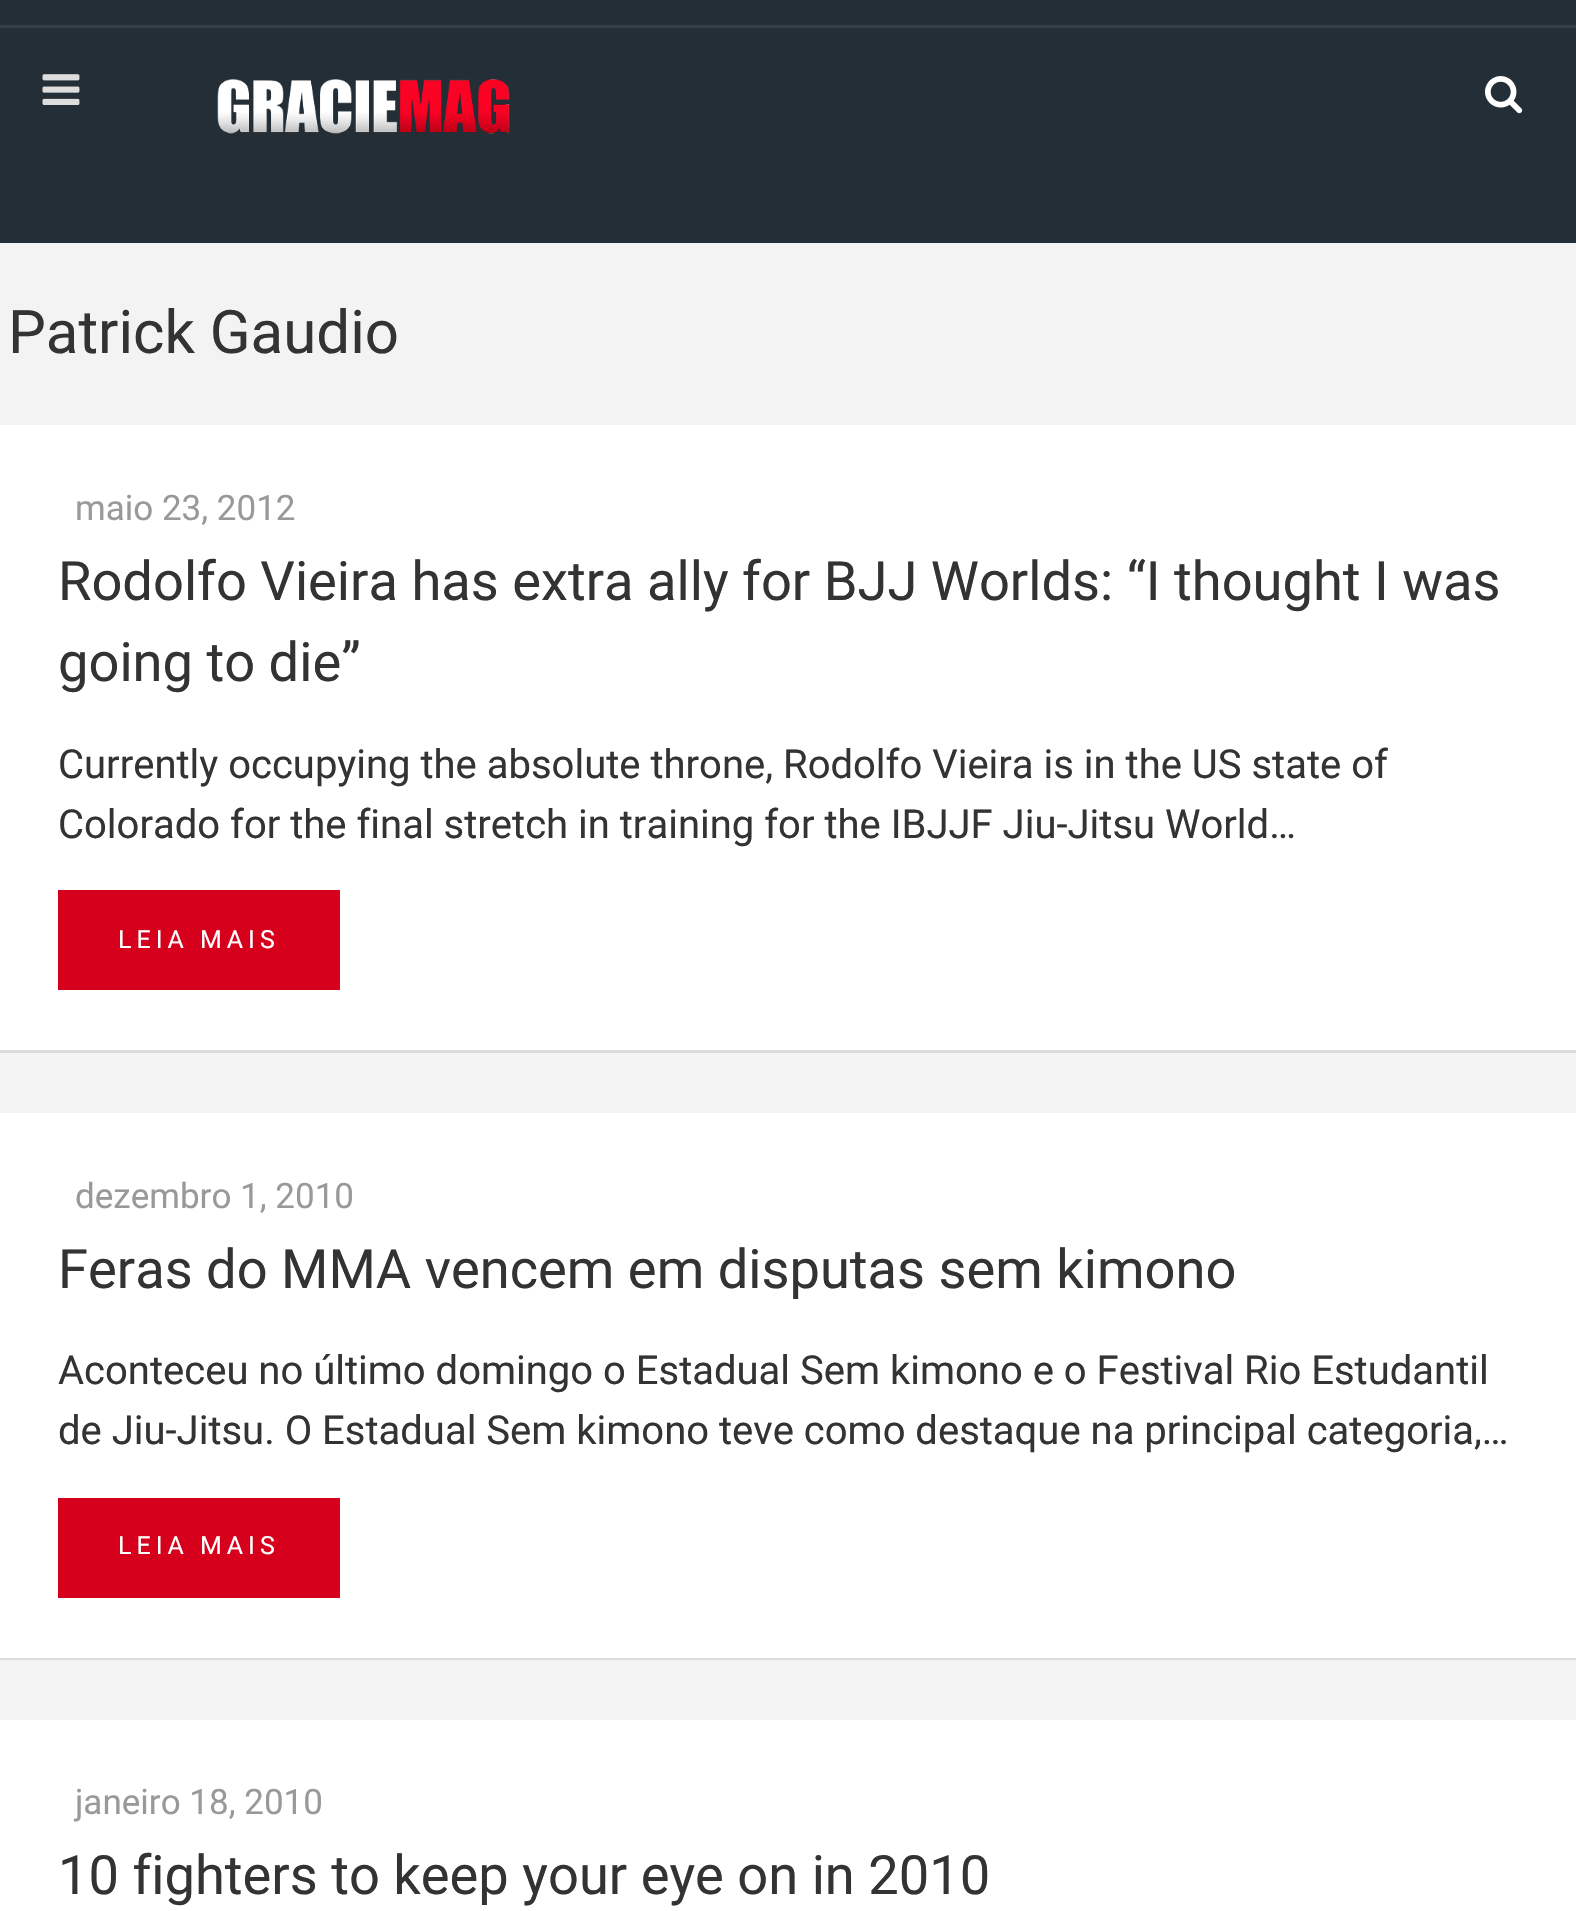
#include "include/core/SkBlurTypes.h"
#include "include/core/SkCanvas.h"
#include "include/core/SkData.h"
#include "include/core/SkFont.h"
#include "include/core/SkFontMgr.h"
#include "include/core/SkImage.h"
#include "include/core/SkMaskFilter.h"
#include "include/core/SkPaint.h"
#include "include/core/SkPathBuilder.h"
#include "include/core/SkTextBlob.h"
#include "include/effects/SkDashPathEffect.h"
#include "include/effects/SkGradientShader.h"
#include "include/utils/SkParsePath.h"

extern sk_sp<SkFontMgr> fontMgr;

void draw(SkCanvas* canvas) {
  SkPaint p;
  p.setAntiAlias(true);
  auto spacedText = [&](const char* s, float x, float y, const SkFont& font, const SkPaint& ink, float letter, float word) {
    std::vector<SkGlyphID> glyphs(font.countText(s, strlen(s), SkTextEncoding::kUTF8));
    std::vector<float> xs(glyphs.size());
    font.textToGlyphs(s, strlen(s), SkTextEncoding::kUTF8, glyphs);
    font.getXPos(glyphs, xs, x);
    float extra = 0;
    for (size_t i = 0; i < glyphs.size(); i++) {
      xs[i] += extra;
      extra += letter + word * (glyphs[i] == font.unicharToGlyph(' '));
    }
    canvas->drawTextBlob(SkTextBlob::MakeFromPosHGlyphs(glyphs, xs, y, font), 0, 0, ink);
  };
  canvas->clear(SkColorSetRGB(243, 243, 243));
  p.setColor(SkColorSetRGB(36, 46, 54));
  canvas->drawRect(SkRect::MakeLTRB(0, 0, 1576, 243), p);
  p.setColor(SkColorSetRGB(54, 64, 72));
  canvas->drawRect(SkRect::MakeLTRB(0, 25, 1576, 28), p);
  canvas->drawImageRect(SkImages::DeferredFromEncodedData(SkData::MakeFromFileName("images/1.png")), SkRect::MakeLTRB(42, 74, 80, 105), SkSamplingOptions());
  canvas->drawImageRect(SkImages::DeferredFromEncodedData(SkData::MakeFromFileName("images/2.png")), SkRect::MakeLTRB(217, 79, 510, 134), SkSamplingOptions());
  canvas->drawImageRect(SkImages::DeferredFromEncodedData(SkData::MakeFromFileName("images/3.png")), SkRect::MakeLTRB(1485, 76, 1523, 114), SkSamplingOptions());
  p.setColor(SkColorSetRGB(219, 219, 219));
  canvas->drawPath(SkPathBuilder().moveTo(0, 1050).lineTo(0, 1053).lineTo(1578, 1053).lineTo(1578, 428).lineTo(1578, 1050).close().detach(), p);
  p.setColor(SK_ColorWHITE);
  canvas->drawRect(SkRect::MakeLTRB(0, 425, 1576, 1050), p);
  p.setColor(SkColorSetRGB(214, 0, 28));
  canvas->drawRect(SkRect::MakeLTRB(58, 890, 340, 990), p);
  p.setColor(SkColorSetRGB(219, 219, 219));
  canvas->drawPath(SkPathBuilder().moveTo(0, 1658).lineTo(0, 1660).lineTo(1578, 1660).lineTo(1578, 1115).lineTo(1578, 1658).close().detach(), p);
  p.setColor(SK_ColorWHITE);
  canvas->drawRect(SkRect::MakeLTRB(0, 1113, 1576, 1658), p);
  p.setColor(SkColorSetRGB(214, 0, 28));
  canvas->drawRect(SkRect::MakeLTRB(58, 1498, 340, 1598), p);
  p.setColor(SK_ColorWHITE);
  canvas->drawRect(SkRect::MakeLTRB(0, 1720, 1576, 1911), p);
  SkFont font1(fontMgr->matchFamilyStyle("Roboto", SkFontStyle::Normal()), 60);
  font1.setSubpixel(true);
  p.setColor(SkColorSetRGB(51, 51, 51));
  canvas->drawString("Patrick Gaudio", 8, 353, font1, p);
  SkFont font2(fontMgr->matchFamilyStyle("Roboto", SkFontStyle::Normal()), 35);
  font2.setSubpixel(true);
  p.setColor(SkColorSetRGB(153, 153, 153));
  canvas->drawString("maio 23, 2012", 75, 520, font2, p);
  SkFont font3(fontMgr->matchFamilyStyle("Roboto", SkFontStyle::Normal()), 54.25f);
  font3.setSubpixel(true);
  p.setColor(SkColorSetRGB(51, 51, 51));
  canvas->drawString("Rodolfo Vieira has extra ally for BJJ Worlds: “I thought I was", 58, 600, font3, p);
  canvas->drawString("going to die”", 58, 681, font3, p);
  SkFont font4(fontMgr->matchFamilyStyle("Roboto", SkFontStyle::Normal()), 40);
  font4.setSubpixel(true);
  canvas->drawString("Currently occupying the absolute throne, Rodolfo Vieira is in the US state of", 58, 778, font4, p);
  canvas->drawString("Colorado for the final stretch in training for the IBJJF Jiu-Jitsu World…", 58, 838, font4, p);
  SkFont font5(fontMgr->matchFamilyStyle("Roboto", SkFontStyle::Normal()), 25);
  font5.setSubpixel(true);
  p.setColor(SK_ColorWHITE);
  spacedText("LEIA MAIS", 118, 948, font5, p, 5, 0);
  p.setColor(SkColorSetRGB(153, 153, 153));
  canvas->drawString("dezembro 1, 2010", 75, 1208, font2, p);
  p.setColor(SkColorSetRGB(51, 51, 51));
  canvas->drawString("Feras do MMA vencem em disputas sem kimono", 58, 1288, font3, p);
  canvas->drawString("Aconteceu no último domingo o Estadual Sem kimono e o Festival Rio Estudantil", 58, 1384, font4, p);
  canvas->drawString("de Jiu-Jitsu. O Estadual Sem kimono teve como destaque na principal categoria,…", 58, 1444, font4, p);
  p.setColor(SK_ColorWHITE);
  spacedText("LEIA MAIS", 118, 1554, font5, p, 5, 0);
  p.setColor(SkColorSetRGB(153, 153, 153));
  canvas->drawString("janeiro 18, 2010", 75, 1814, font2, p);
  p.setColor(SkColorSetRGB(51, 51, 51));
  canvas->drawString("10 fighters to keep your eye on in 2010", 58, 1894, font3, p);
}
